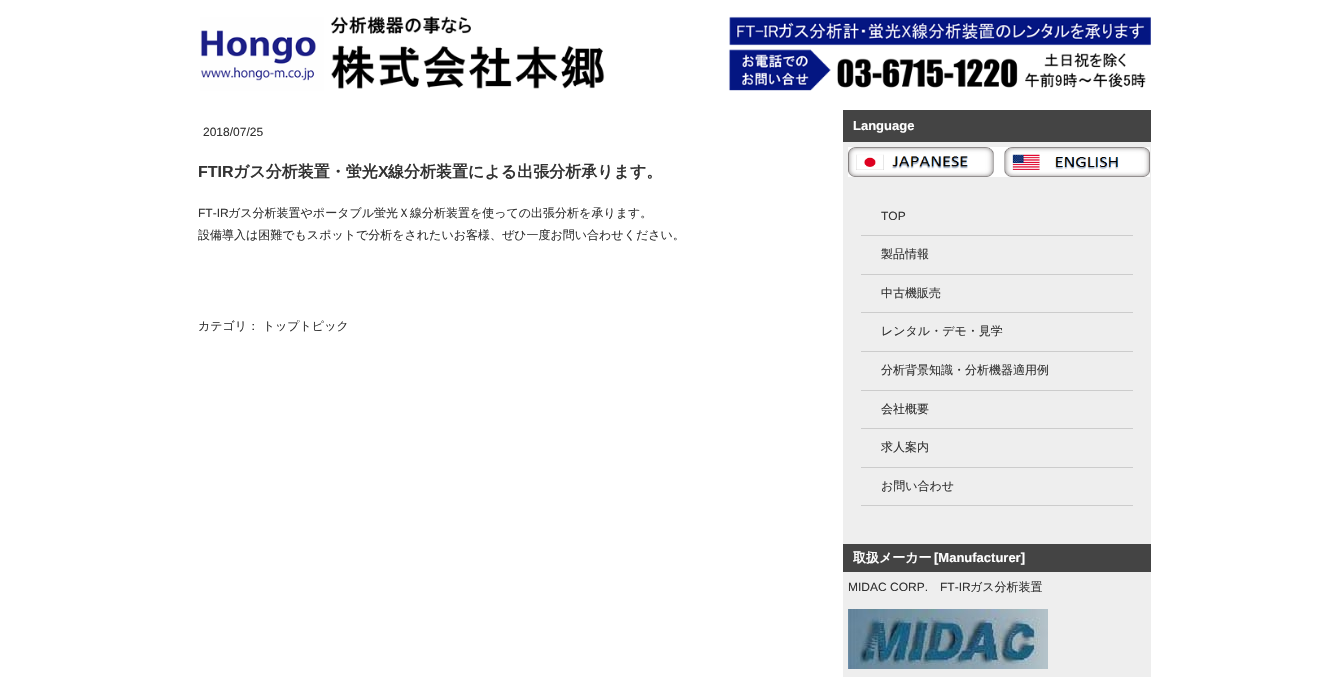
#include "include/core/SkBlurTypes.h"
#include "include/core/SkCanvas.h"
#include "include/core/SkData.h"
#include "include/core/SkFont.h"
#include "include/core/SkFontMgr.h"
#include "include/core/SkImage.h"
#include "include/core/SkMaskFilter.h"
#include "include/core/SkPaint.h"
#include "include/core/SkPathBuilder.h"
#include "include/core/SkTextBlob.h"
#include "include/effects/SkDashPathEffect.h"
#include "include/effects/SkGradientShader.h"
#include "include/utils/SkParsePath.h"

extern sk_sp<SkFontMgr> fontMgr;

void draw(SkCanvas* canvas) {
  SkPaint p;
  p.setAntiAlias(true);
  canvas->clear(SK_ColorWHITE);
  canvas->drawImageRect(SkImages::DeferredFromEncodedData(SkData::MakeFromFileName("images/1.png")), SkRect::MakeLTRB(200, 16, 1151, 91), SkSamplingOptions());
  p.setColor(SkColorSetRGB(238, 238, 238));
  canvas->drawRect(SkRect::MakeLTRB(843, 142, 1151, 677), p);
  p.setColor(SkColorSetRGB(68, 68, 68));
  canvas->drawRect(SkRect::MakeLTRB(843, 110, 1151, 142), p);
  canvas->drawImageRect(SkImages::DeferredFromEncodedData(SkData::MakeFromFileName("images/2.png")), SkRect::MakeLTRB(848, 147, 1150, 177), SkSamplingOptions());
  p.setColor(SkColorSetRGB(204, 204, 204));
  canvas->drawRect(SkRect::MakeLTRB(861, 235, 1133, 236), p);
  canvas->drawRect(SkRect::MakeLTRB(861, 274, 1133, 275), p);
  canvas->drawRect(SkRect::MakeLTRB(861, 312, 1133, 313), p);
  canvas->drawRect(SkRect::MakeLTRB(861, 351, 1133, 352), p);
  canvas->drawRect(SkRect::MakeLTRB(861, 390, 1133, 391), p);
  canvas->drawRect(SkRect::MakeLTRB(861, 428, 1133, 429), p);
  canvas->drawRect(SkRect::MakeLTRB(861, 467, 1133, 468), p);
  canvas->drawRect(SkRect::MakeLTRB(861, 505, 1133, 506), p);
  p.setColor(SkColorSetRGB(68, 68, 68));
  canvas->drawRect(SkRect::MakeLTRB(843, 544, 1151, 572), p);
  canvas->drawImageRect(SkImages::DeferredFromEncodedData(SkData::MakeFromFileName("images/3.png")), SkRect::MakeLTRB(848, 609, 1048, 669), SkSamplingOptions());
  SkFont font1(fontMgr->matchFamilyStyle("Liberation Sans", SkFontStyle::Normal()), 12);
  font1.setSubpixel(true);
  p.setColor(SkColorSetRGB(51, 51, 51));
  canvas->drawString("2018/07/25", 203, 136, font1, p);
  SkFont font2(fontMgr->matchFamilyStyle("Liberation Sans", SkFontStyle::Bold()), 16);
  font2.setSubpixel(true);
  canvas->drawString("FTIR", 198, 177, font2, p);
  SkFont font3(fontMgr->matchFamilyStyle("WenQuanYi Zen Hei", SkFontStyle::Bold()), 16);
  font3.setSubpixel(true);
  canvas->drawString("ガス分析装置・蛍光", 233, 177, font3, p);
  canvas->drawString("X", 378, 177, font2, p);
  canvas->drawString("線分析装置による出張分析承ります。", 388, 177, font3, p);
  canvas->drawString("FT-IR", 198, 217, font1, p);
  SkFont font4(fontMgr->matchFamilyStyle("WenQuanYi Zen Hei", SkFontStyle(500, SkFontStyle::kNormal_Width, SkFontStyle::kUpright_Slant)), 12);
  font4.setSubpixel(true);
  canvas->drawString("ガス分析装置やポータブル蛍光Ｘ線分析装置を使っての出張分析を承ります。", 228, 217, font4, p);
  canvas->drawString("設備導入は困難でもスポットで分析をされたいお客様、ぜひ一度お問い合わせください。", 198, 239, font4, p);
  canvas->drawString("カテゴリ： トップトピック", 198, 330, font4, p);
  SkFont font5(fontMgr->matchFamilyStyle("Liberation Sans", SkFontStyle::Bold()), 13);
  font5.setSubpixel(true);
  p.setColor(SK_ColorWHITE);
  canvas->drawString("Language", 853, 130, font5, p);
  p.setColor(SkColorSetRGB(51, 51, 51));
  canvas->drawString("TOP", 881, 220, font1, p);
  canvas->drawString("製品情報", 881, 258, font4, p);
  canvas->drawString("中古機販売", 881, 297, font4, p);
  canvas->drawString("レンタル・デモ・見学", 881, 335, font4, p);
  canvas->drawString("分析背景知識・分析機器適用例", 881, 374, font4, p);
  canvas->drawString("会社概要", 881, 413, font4, p);
  canvas->drawString("求人案内", 881, 451, font4, p);
  canvas->drawString("お問い合わせ", 881, 490, font4, p);
  SkFont font6(fontMgr->matchFamilyStyle("WenQuanYi Zen Hei", SkFontStyle::Bold()), 13);
  font6.setSubpixel(true);
  p.setColor(SK_ColorWHITE);
  canvas->drawString("取扱メーカー", 853, 562, font6, p);
  canvas->drawString("[Manufacturer]", 934, 562, font5, p);
  p.setColor(SkColorSetRGB(51, 51, 51));
  canvas->drawString("MIDAC CORP.", 848, 591, font1, p);
  canvas->drawString("FT-IR", 940, 591, font1, p);
  canvas->drawString("ガス分析装置", 970, 591, font4, p);
}
